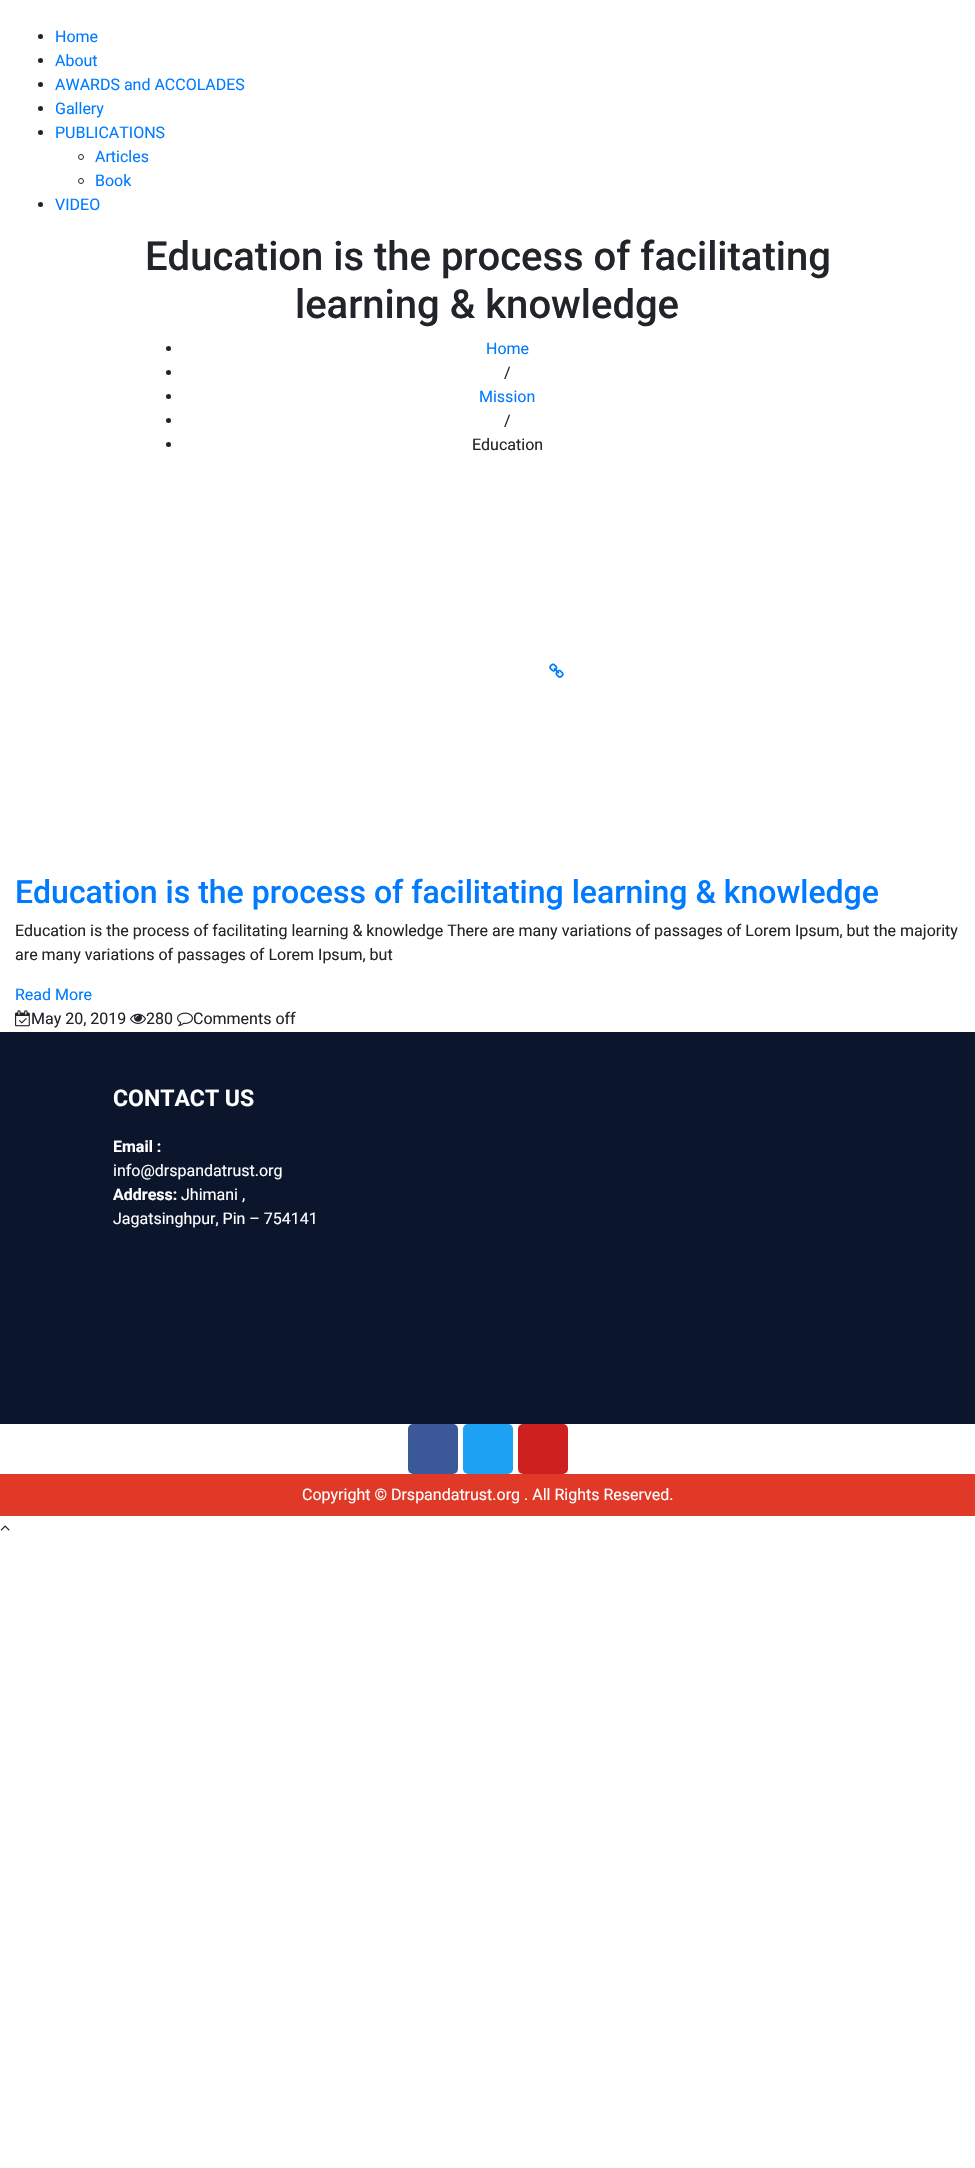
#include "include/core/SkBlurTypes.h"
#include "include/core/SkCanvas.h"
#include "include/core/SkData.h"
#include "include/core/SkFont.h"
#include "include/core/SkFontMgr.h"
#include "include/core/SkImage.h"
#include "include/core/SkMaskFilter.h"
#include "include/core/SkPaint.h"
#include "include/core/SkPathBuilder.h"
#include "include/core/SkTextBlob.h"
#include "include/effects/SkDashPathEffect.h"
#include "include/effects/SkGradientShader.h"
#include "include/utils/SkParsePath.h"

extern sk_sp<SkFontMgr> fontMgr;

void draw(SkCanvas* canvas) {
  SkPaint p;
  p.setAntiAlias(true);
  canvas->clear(SK_ColorWHITE);
  p.setColor(SkColorSetRGB(33, 37, 41));
  canvas->drawCircle(40.5f, 36.5f, 2.5f, p);
  canvas->drawCircle(40.5f, 60.5f, 2.5f, p);
  canvas->drawCircle(40.5f, 84.5f, 2.5f, p);
  canvas->drawCircle(40.5f, 108.5f, 2.5f, p);
  canvas->drawCircle(40.5f, 132.5f, 2.5f, p);
  p.setStyle(SkPaint::kStroke_Style);
  p.setStrokeWidth(1);
  canvas->drawCircle(81, 157, 2.5f, p);
  canvas->drawCircle(81, 181, 2.5f, p);
  p.setStyle(SkPaint::kFill_Style);
  canvas->drawCircle(40.5f, 204.5f, 2.5f, p);
  canvas->drawCircle(168.5f, 348.5f, 2.5f, p);
  canvas->drawCircle(168.5f, 372.5f, 2.5f, p);
  canvas->drawCircle(168.5f, 396.5f, 2.5f, p);
  canvas->drawCircle(168.5f, 420.5f, 2.5f, p);
  canvas->drawCircle(168.5f, 444.5f, 2.5f, p);
  canvas->drawImageRect(SkImages::DeferredFromEncodedData(SkData::MakeFromFileName("images/1.png")), SkRect::MakeLTRB(549, 663, 564, 678), SkSamplingOptions());
  canvas->drawImageRect(SkImages::DeferredFromEncodedData(SkData::MakeFromFileName("images/2.png")), SkRect::MakeLTRB(15, 1010, 30, 1027), SkSamplingOptions());
  canvas->drawImageRect(SkImages::DeferredFromEncodedData(SkData::MakeFromFileName("images/3.png")), SkRect::MakeLTRB(130, 1013, 146, 1024), SkSamplingOptions());
  canvas->drawImageRect(SkImages::DeferredFromEncodedData(SkData::MakeFromFileName("images/4.png")), SkRect::MakeLTRB(177, 1012, 193, 1027), SkSamplingOptions());
  p.setColor(SkColorSetRGB(11, 22, 44));
  canvas->drawRect(SkRect::MakeLTRB(0, 1032, 975, 1424), p);
  p.setColor(SkColorSetRGB(59, 89, 152));
  canvas->drawRoundRect(SkRect::MakeLTRB(408, 1424, 458, 1474), 5, 5, p);
  p.setColor(SkColorSetRGB(29, 161, 242));
  canvas->drawRoundRect(SkRect::MakeLTRB(463, 1424, 513, 1474), 5, 5, p);
  p.setColor(SkColorSetRGB(205, 32, 31));
  canvas->drawRoundRect(SkRect::MakeLTRB(518, 1424, 568, 1474), 5, 5, p);
  p.setColor(SkColorSetRGB(224, 57, 39));
  canvas->drawRect(SkRect::MakeLTRB(0, 1474, 975, 1516), p);
  canvas->drawImageRect(SkImages::DeferredFromEncodedData(SkData::MakeFromFileName("images/5.png")), SkRect::MakeLTRB(0, 1525, 10, 1531), SkSamplingOptions());
  SkFont font1(fontMgr->matchFamilyStyle("Roboto", SkFontStyle::Normal()), 16);
  font1.setSubpixel(true);
  p.setColor(SkColorSetRGB(0, 123, 255));
  canvas->drawString("Home", 55, 42, font1, p);
  canvas->drawString("About", 55, 66, font1, p);
  canvas->drawString("AWARDS and ACCOLADES", 55, 90, font1, p);
  canvas->drawString("Gallery", 55, 114, font1, p);
  canvas->drawString("PUBLICATIONS", 55, 138, font1, p);
  canvas->drawString("Articles", 95, 162, font1, p);
  canvas->drawString("Book", 95, 186, font1, p);
  canvas->drawString("VIDEO", 55, 210, font1, p);
  SkFont font2(fontMgr->matchFamilyStyle("Roboto", SkFontStyle(500, SkFontStyle::kNormal_Width, SkFontStyle::kUpright_Slant)), 40);
  font2.setSubpixel(true);
  p.setColor(SkColorSetRGB(33, 37, 41));
  canvas->drawString("Education is the process of facilitating", 145, 270, font2, p);
  canvas->drawString("learning & knowledge", 295, 318, font2, p);
  p.setColor(SkColorSetRGB(0, 123, 255));
  canvas->drawString("Home", 486, 354, font1, p);
  p.setColor(SkColorSetRGB(33, 37, 41));
  canvas->drawString("/", 504, 378, font1, p);
  p.setColor(SkColorSetRGB(0, 123, 255));
  canvas->drawString("Mission", 479, 402, font1, p);
  p.setColor(SkColorSetRGB(33, 37, 41));
  canvas->drawString("/", 504, 426, font1, p);
  canvas->drawString("Education", 472, 450, font1, p);
  SkFont font3(fontMgr->matchFamilyStyle("Roboto", SkFontStyle(500, SkFontStyle::kNormal_Width, SkFontStyle::kUpright_Slant)), 32);
  font3.setSubpixel(true);
  p.setColor(SkColorSetRGB(0, 123, 255));
  canvas->drawString("Education is the process of facilitating learning & knowledge", 15, 903, font3, p);
  p.setColor(SkColorSetRGB(33, 37, 41));
  canvas->drawString("Education is the process of facilitating learning & knowledge There are many variations of passages of Lorem Ipsum, but the majority", 15, 936, font1, p);
  canvas->drawString("are many variations of passages of Lorem Ipsum, but", 15, 960, font1, p);
  p.setColor(SkColorSetRGB(0, 123, 255));
  canvas->drawString("Read More", 15, 1000, font1, p);
  p.setColor(SkColorSetRGB(33, 37, 41));
  canvas->drawString("May 20, 2019", 31, 1024, font1, p);
  canvas->drawString("280", 146, 1024, font1, p);
  canvas->drawString("Comments off", 193, 1024, font1, p);
  SkFont font4(fontMgr->matchFamilyStyle("Roboto", SkFontStyle::Bold()), 23);
  font4.setSubpixel(true);
  p.setColor(SK_ColorWHITE);
  canvas->drawString("CONTACT US", 113, 1106, font4, p);
  SkFont font5(fontMgr->matchFamilyStyle("Roboto", SkFontStyle::Bold()), 16);
  font5.setSubpixel(true);
  canvas->drawString("Email :", 113, 1152, font5, p);
  canvas->drawString("info@drspandatrust.org", 113, 1176, font1, p);
  canvas->drawString("Address:", 113, 1200, font5, p);
  canvas->drawString("Jhimani ,", 181, 1200, font1, p);
  canvas->drawString("Jagatsinghpur, Pin – 754141", 113, 1224, font1, p);
  canvas->drawString("Copyright © Drspandatrust.org . All Rights Reserved.", 302, 1500, font1, p);
}
